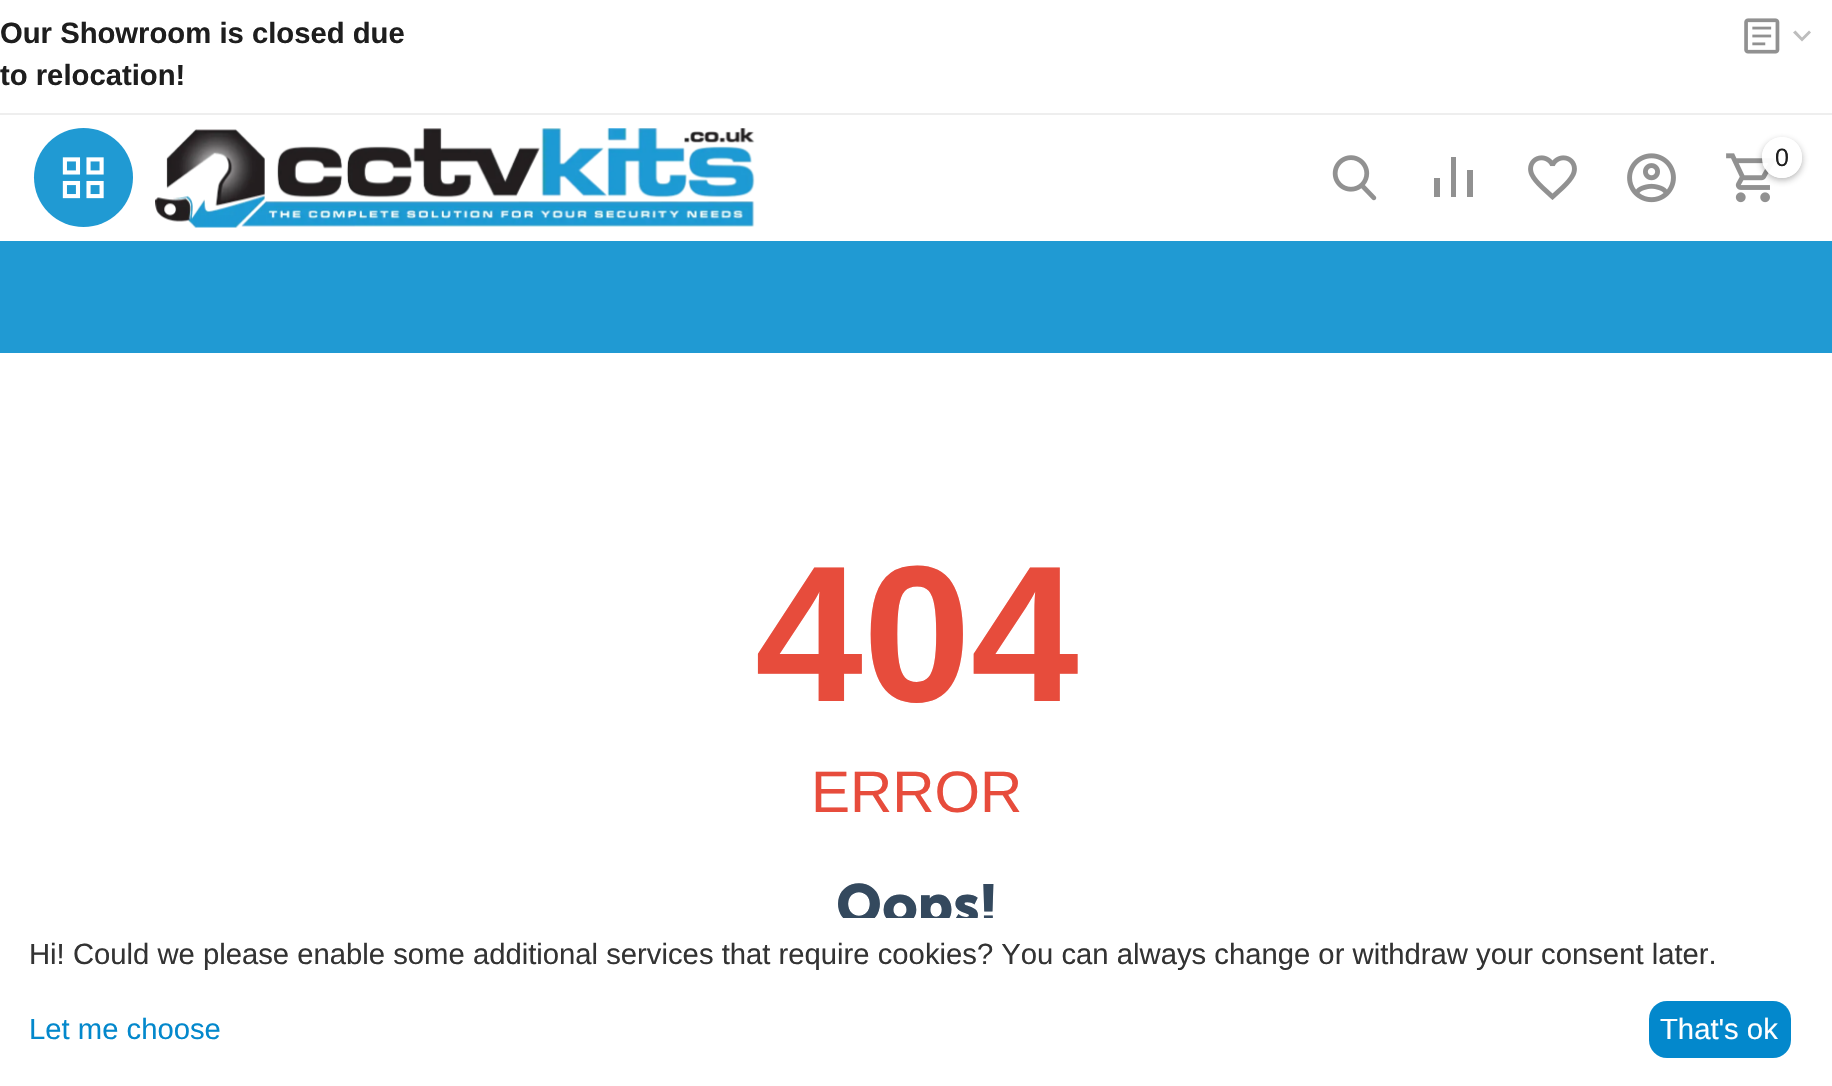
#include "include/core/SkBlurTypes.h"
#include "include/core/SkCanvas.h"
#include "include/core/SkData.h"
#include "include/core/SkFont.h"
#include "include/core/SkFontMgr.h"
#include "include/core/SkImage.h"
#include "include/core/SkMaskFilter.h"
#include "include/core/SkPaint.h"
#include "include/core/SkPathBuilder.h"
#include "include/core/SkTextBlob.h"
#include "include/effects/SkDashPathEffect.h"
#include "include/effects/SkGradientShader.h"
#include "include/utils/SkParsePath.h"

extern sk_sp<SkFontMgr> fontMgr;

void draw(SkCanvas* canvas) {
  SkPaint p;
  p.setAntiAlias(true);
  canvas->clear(SK_ColorWHITE);
  p.setColor(SkColorSetRGB(238, 238, 238));
  canvas->drawRect(SkRect::MakeLTRB(0, 113, 1832, 115), p);
  canvas->drawImageRect(SkImages::DeferredFromEncodedData(SkData::MakeFromFileName("images/1.png")), SkRect::MakeLTRB(1744, 18, 1780, 54), SkSamplingOptions());
  p.setColor(SkColorSetRGB(189, 189, 189));
  canvas->drawPath(SkPathBuilder().moveTo(1809, 30.5f).lineTo(1802, 37.5f).lineTo(1795.5f, 30.5f).lineTo(1793, 32.5f).lineTo(1802, 41.5f).lineTo(1811, 32.5f).close().detach(), p);
  p.setColor(SkColorSetRGB(32, 154, 211));
  canvas->drawCircle(83.5f, 177.5f, 49.5f, p);
  canvas->drawImageRect(SkImages::DeferredFromEncodedData(SkData::MakeFromFileName("images/2.png")), SkRect::MakeLTRB(62, 157, 104, 199), SkSamplingOptions());
  canvas->drawImageRect(SkImages::DeferredFromEncodedData(SkData::MakeFromFileName("images/3.png")), SkRect::MakeLTRB(155, 128, 755, 228), SkSamplingOptions());
  canvas->drawImageRect(SkImages::DeferredFromEncodedData(SkData::MakeFromFileName("images/4.png")), SkRect::MakeLTRB(1332, 155, 1377, 201), SkSamplingOptions());
  p.setColor(SkColorSetRGB(145, 145, 145));
  canvas->drawPath(SkPathBuilder().moveTo(1434, 178).lineTo(1440, 178).lineTo(1440, 197).lineTo(1434, 197).close().moveTo(1451, 157).lineTo(1456, 157).lineTo(1456, 197).lineTo(1451, 197).close().moveTo(1467, 170).lineTo(1473, 170).lineTo(1473, 197).lineTo(1467, 197).close().detach(), p);
  canvas->drawImageRect(SkImages::DeferredFromEncodedData(SkData::MakeFromFileName("images/5.png")), SkRect::MakeLTRB(1528, 155, 1577, 200), SkSamplingOptions());
  canvas->drawImageRect(SkImages::DeferredFromEncodedData(SkData::MakeFromFileName("images/6.png")), SkRect::MakeLTRB(1627, 153, 1676, 203), SkSamplingOptions());
  canvas->drawImageRect(SkImages::DeferredFromEncodedData(SkData::MakeFromFileName("images/7.png")), SkRect::MakeLTRB(1726, 153, 1775, 203), SkSamplingOptions());
  canvas->save();
  canvas->clipPath(SkPathBuilder(SkPathFillType::kEvenOdd).moveTo(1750, 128).lineTo(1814, 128).lineTo(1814, 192).lineTo(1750, 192).close().moveTo(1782, 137).cubicTo(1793, 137, 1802, 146, 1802, 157).lineTo(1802, 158).cubicTo(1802, 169, 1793, 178, 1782, 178).cubicTo(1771, 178, 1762, 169, 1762, 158).lineTo(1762, 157).cubicTo(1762, 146, 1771, 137, 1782, 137).close().detach(), true);
  p.setColor(SkColorSetARGB(89, 30, 30, 30));
  p.setMaskFilter(SkMaskFilter::MakeBlur(kNormal_SkBlurStyle, 3.5f));
  canvas->drawRoundRect(SkRect::MakeLTRB(1762, 140, 1802, 180), 20, 20, p);
  p.setMaskFilter(nullptr);
  canvas->restore();
  p.setColor(SkColorSetARGB(242, 255, 255, 255));
  canvas->drawRoundRect(SkRect::MakeLTRB(1762, 137, 1802, 178), 20, 20, p);
  p.setColor(SkColorSetRGB(32, 154, 211));
  canvas->drawRect(SkRect::MakeLTRB(0, 241, 1832, 353), p);
  p.setColor(SkColorSetRGB(3, 136, 204));
  canvas->drawRoundRect(SkRect::MakeLTRB(1649, 1001, 1791, 1058), 18, 18, p);
  SkFont font1(fontMgr->matchFamilyStyle("Liberation Sans", SkFontStyle::Bold()), 29.25f);
  font1.setSubpixel(true);
  p.setColor(SkColorSetRGB(30, 30, 30));
  canvas->drawString("Our Showroom is closed due", 0, 43, font1, p);
  canvas->drawString("to relocation!", 0, 85, font1, p);
  SkFont font2(fontMgr->matchFamilyStyle("Liberation Sans", SkFontStyle::Normal()), 25);
  font2.setSubpixel(true);
  canvas->drawString("0", 1775, 166, font2, p);
  SkFont font3(fontMgr->matchFamilyStyle("Liberation Sans", SkFontStyle::Bold()), 194);
  font3.setSubpixel(true);
  p.setColor(SkColorSetRGB(231, 76, 60));
  canvas->drawString("404", 755, 701, font3, p);
  SkFont font4(fontMgr->matchFamilyStyle("Liberation Sans", SkFontStyle::Normal()), 58.5f);
  font4.setSubpixel(true);
  canvas->drawString("ERROR", 811, 812, font4, p);
  SkFont font5(fontMgr->matchFamilyStyle("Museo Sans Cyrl", SkFontStyle::Bold()), 56);
  font5.setSubpixel(true);
  p.setColor(SkColorSetRGB(52, 73, 94));
  canvas->drawString("Oops!", 836, 924, font5, p);
  p.setColor(SK_ColorWHITE);
  canvas->drawRect(SkRect::MakeLTRB(843, 918, 994, 936), p);
  SkFont font6(fontMgr->matchFamilyStyle("Liberation Sans", SkFontStyle::Normal()), 29.25f);
  font6.setSubpixel(true);
  p.setColor(SkColorSetRGB(51, 51, 51));
  canvas->drawString("Hi! Could we please enable some additional services that require cookies? You can always change or withdraw your consent later.", 29, 964, font6, p);
  p.setColor(SkColorSetRGB(3, 136, 204));
  canvas->drawString("Let me choose", 29, 1039, font6, p);
  p.setColor(SK_ColorWHITE);
  canvas->drawString("That's ok", 1660, 1039, font6, p);
}
